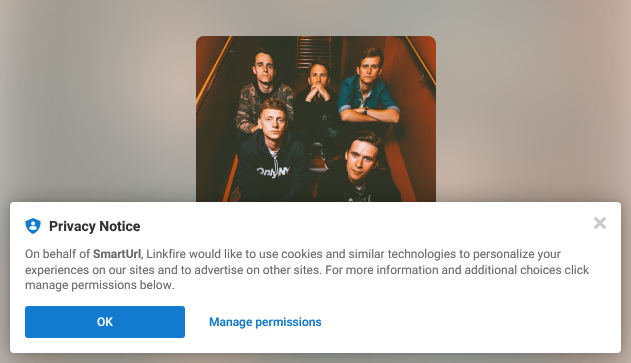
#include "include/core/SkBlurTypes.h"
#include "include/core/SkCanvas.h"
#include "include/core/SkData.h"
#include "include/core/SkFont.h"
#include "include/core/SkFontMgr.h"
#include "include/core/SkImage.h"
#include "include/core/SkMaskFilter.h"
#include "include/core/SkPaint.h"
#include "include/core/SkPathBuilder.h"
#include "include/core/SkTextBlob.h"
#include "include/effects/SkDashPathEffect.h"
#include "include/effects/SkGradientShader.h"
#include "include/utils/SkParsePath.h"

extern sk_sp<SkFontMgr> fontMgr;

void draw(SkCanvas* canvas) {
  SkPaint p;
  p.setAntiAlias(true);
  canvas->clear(SK_ColorWHITE);
  canvas->drawImageRect(SkImages::DeferredFromEncodedData(SkData::MakeFromFileName("images/1.png")), SkRect::MakeLTRB(0, 0, 631, 363), SkSamplingOptions());
  canvas->drawImageRect(SkImages::DeferredFromEncodedData(SkData::MakeFromFileName("images/2.png")), SkRect::MakeLTRB(196, 36, 436, 202), SkSamplingOptions());
  p.setColor(SkColorSetARGB(31, 0, 0, 0));
  p.setMaskFilter(SkMaskFilter::MakeBlur(kNormal_SkBlurStyle, 2));
  canvas->drawRoundRect(SkRect::MakeLTRB(10, 202, 621, 353), 4, 4, p);
  p.setMaskFilter(nullptr);
  p.setColor(SkColorSetARGB(77, 0, 0, 0));
  p.setMaskFilter(SkMaskFilter::MakeBlur(kNormal_SkBlurStyle, 12));
  canvas->drawRoundRect(SkRect::MakeLTRB(10, 202, 621, 353), 4, 4, p);
  p.setMaskFilter(nullptr);
  p.setColor(SK_ColorWHITE);
  canvas->drawRoundRect(SkRect::MakeLTRB(10, 202, 621, 353), 4, 4, p);
  canvas->drawImageRect(SkImages::DeferredFromEncodedData(SkData::MakeFromFileName("images/3.png")), SkRect::MakeLTRB(25, 218, 41, 234), SkSamplingOptions());
  p.setColor(SkColorSetRGB(19, 123, 207));
  canvas->drawRoundRect(SkRect::MakeLTRB(25, 306, 185, 338), 3, 3, p);
  canvas->drawImageRect(SkImages::DeferredFromEncodedData(SkData::MakeFromFileName("images/4.png")), SkRect::MakeLTRB(594, 217, 606, 229), SkSamplingOptions());
  SkFont font1(fontMgr->matchFamilyStyle("Roboto", SkFontStyle::Bold()), 14);
  font1.setSubpixel(true);
  p.setColor(SkColorSetRGB(50, 50, 50));
  canvas->drawString("Privacy Notice", 49, 231, font1, p);
  SkFont font2(fontMgr->matchFamilyStyle("Roboto", SkFontStyle::Normal()), 12);
  font2.setSubpixel(true);
  p.setColor(SkColorSetRGB(104, 104, 104));
  canvas->drawString("On behalf of", 25, 258, font2, p);
  SkFont font3(fontMgr->matchFamilyStyle("Roboto", SkFontStyle::Bold()), 12);
  font3.setSubpixel(true);
  canvas->drawString("SmartUrl", 93, 258, font3, p);
  canvas->drawString(", Linkfire would like to use cookies and similar technologies to personalize your", 141, 258, font2, p);
  canvas->drawString("experiences on our sites and to advertise on other sites. For more information and additional choices click", 25, 274, font2, p);
  canvas->drawString("manage permissions below.", 25, 289, font2, p);
  SkFont font4(fontMgr->matchFamilyStyle("Roboto", SkFontStyle(500, SkFontStyle::kNormal_Width, SkFontStyle::kUpright_Slant)), 12);
  font4.setSubpixel(true);
  p.setColor(SK_ColorWHITE);
  canvas->drawString("OK", 97, 326, font4, p);
  SkFont font5(fontMgr->matchFamilyStyle("Roboto", SkFontStyle(600, SkFontStyle::kNormal_Width, SkFontStyle::kUpright_Slant)), 12);
  font5.setSubpixel(true);
  p.setColor(SkColorSetRGB(19, 123, 207));
  canvas->drawString("Manage permissions", 209, 326, font5, p);
}
